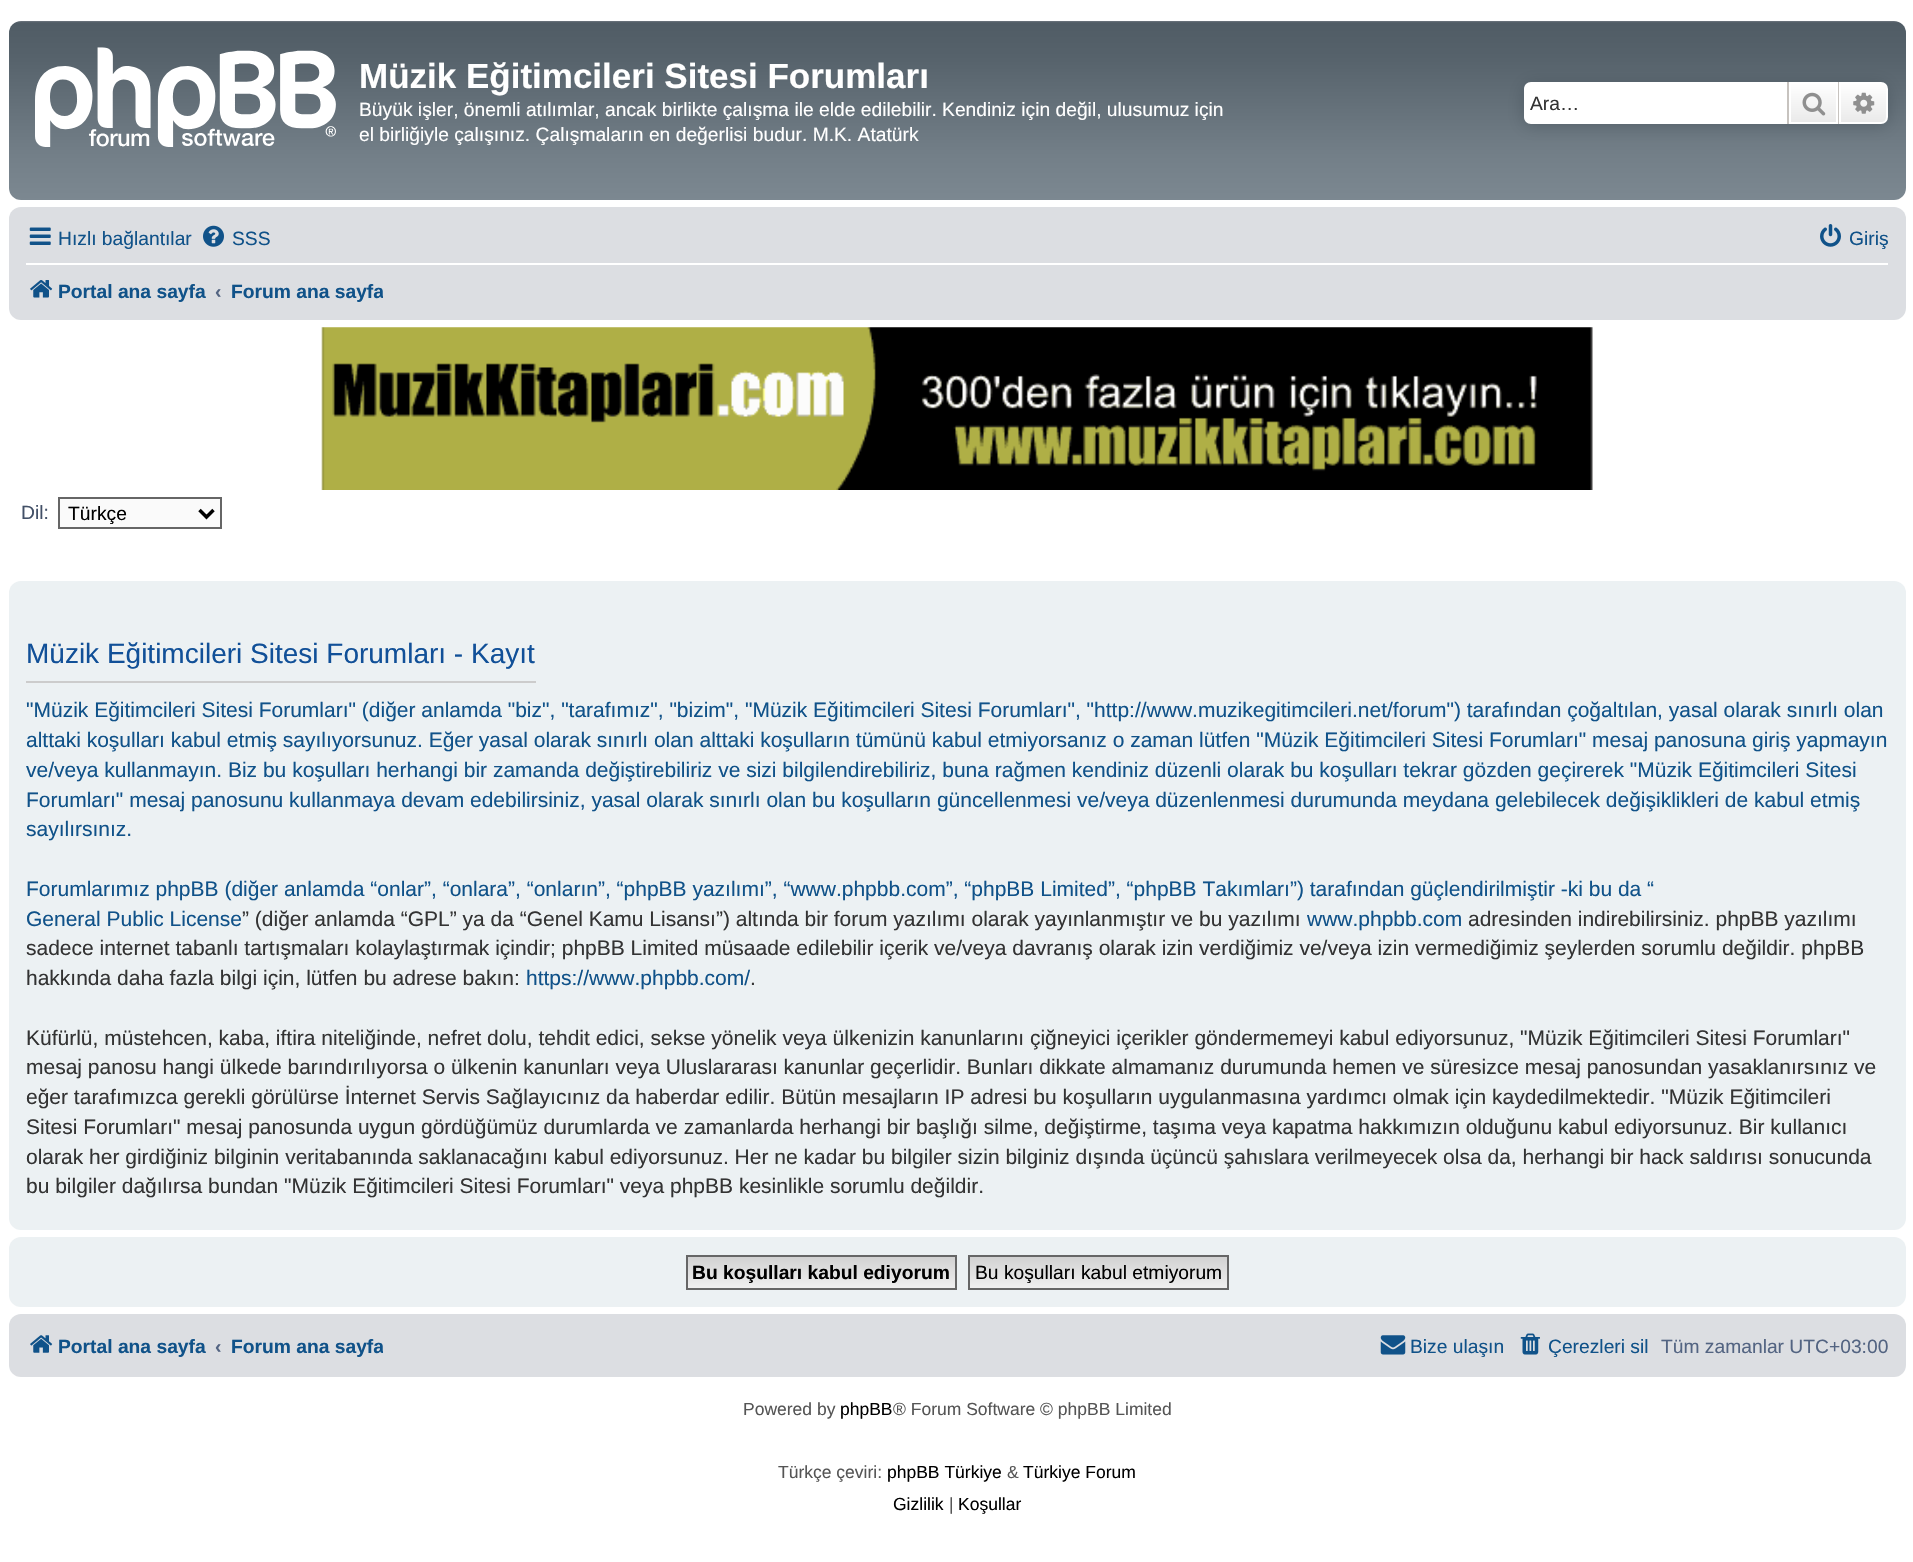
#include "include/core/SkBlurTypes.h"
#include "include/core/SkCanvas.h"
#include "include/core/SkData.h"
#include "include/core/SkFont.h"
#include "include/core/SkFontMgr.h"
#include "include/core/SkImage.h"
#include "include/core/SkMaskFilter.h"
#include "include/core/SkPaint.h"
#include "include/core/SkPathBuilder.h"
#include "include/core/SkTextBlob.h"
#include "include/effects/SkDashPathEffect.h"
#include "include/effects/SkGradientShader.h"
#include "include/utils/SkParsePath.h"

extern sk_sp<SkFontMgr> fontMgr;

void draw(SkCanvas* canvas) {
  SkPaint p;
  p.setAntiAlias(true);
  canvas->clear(SK_ColorWHITE);
  {
    const SkColor colors[] = {SkColorSetRGB(110, 119, 127), SkColorSetRGB(80, 92, 101), SkColorSetRGB(86, 98, 107), SkColorSetRGB(115, 127, 136), SkColorSetRGB(124, 136, 145)};
    const float stops[] = {0, 0.01f, 0.2f, 0.75f, 1};
    const SkPoint ends[] = {{957, 21}, {957, 200}};
    p.setShader(SkGradientShader::MakeLinear(ends, colors, stops, 5, SkTileMode::kClamp));
    p.setAlpha(255);
  }
  canvas->drawRoundRect(SkRect::MakeLTRB(9, 21, 1906, 200), 12, 12, p);
  canvas->drawImageRect(SkImages::DeferredFromEncodedData(SkData::MakeFromFileName("images/1.png")), SkRect::MakeLTRB(35, 47, 336, 147), SkSamplingOptions());
  p.setShader(nullptr);
  p.setColor(SkColorSetRGB(80, 92, 101));
  p.setMaskFilter(SkMaskFilter::MakeBlur(kNormal_SkBlurStyle, 9));
  canvas->drawRoundRect(SkRect::MakeLTRB(1524, 82, 1888, 124), 7, 7, p);
  p.setMaskFilter(nullptr);
  p.setColor(SK_ColorWHITE);
  canvas->drawPath(SkPathBuilder().moveTo(1531, 82).lineTo(1787, 82).lineTo(1787, 124).lineTo(1531, 124).cubicTo(1527, 124, 1524, 121, 1524, 117).lineTo(1524, 89).cubicTo(1524, 85, 1527, 82, 1531, 82).close().detach(), p);
  {
    const SkColor colors[] = {SK_ColorWHITE, SkColorSetRGB(233, 233, 233)};
    const float stops[] = {0, 1};
    const SkPoint ends[] = {{1813, 82}, {1813, 124}};
    p.setShader(SkGradientShader::MakeLinear(ends, colors, stops, 2, SkTileMode::kClamp));
    p.setAlpha(255);
  }
  canvas->drawRect(SkRect::MakeLTRB(1791, 84, 1836, 122), p);
  p.setStyle(SkPaint::kStroke_Style);
  p.setStrokeWidth(2);
  p.setShader(nullptr);
  p.setColor(SK_ColorWHITE);
  canvas->drawRect(SkRect::MakeLTRB(1790, 83, 1837, 123), p);
  p.setStyle(SkPaint::kFill_Style);
  p.setColor(SkColorSetRGB(199, 195, 191));
  canvas->drawRect(SkRect::MakeLTRB(1838, 82, 1839, 124), p);
  canvas->drawRect(SkRect::MakeLTRB(1787, 82, 1789, 124), p);
  canvas->drawImageRect(SkImages::DeferredFromEncodedData(SkData::MakeFromFileName("images/2.png")), SkRect::MakeLTRB(1802, 92, 1826, 116), SkSamplingOptions());
  {
    const SkColor colors[] = {SK_ColorWHITE, SkColorSetRGB(233, 233, 233)};
    const float stops[] = {0, 1};
    const SkPoint ends[] = {{1864, 82}, {1864, 124}};
    p.setShader(SkGradientShader::MakeLinear(ends, colors, stops, 2, SkTileMode::kClamp));
    p.setAlpha(255);
  }
  canvas->drawPath(SkPathBuilder().moveTo(1840, 83).lineTo(1881, 83).cubicTo(1884.5f, 83, 1887, 85.5f, 1887, 89).lineTo(1887, 117).cubicTo(1887, 120.5f, 1884.5f, 123, 1881, 123).lineTo(1840, 123).close().detach(), p);
  p.setStyle(SkPaint::kStroke_Style);
  p.setShader(nullptr);
  p.setColor(SK_ColorWHITE);
  canvas->drawPath(SkPathBuilder().moveTo(1840, 83).lineTo(1881, 83).cubicTo(1884.5f, 83, 1887, 85.5f, 1887, 89).lineTo(1887, 117).cubicTo(1887, 120.5f, 1884.5f, 123, 1881, 123).lineTo(1840, 123).close().detach(), p);
  canvas->drawImageRect(SkImages::DeferredFromEncodedData(SkData::MakeFromFileName("images/3.png")), SkRect::MakeLTRB(1853, 92, 1875, 114), SkSamplingOptions());
  p.setStyle(SkPaint::kFill_Style);
  p.setColor(SkColorSetRGB(220, 222, 226));
  canvas->drawRoundRect(SkRect::MakeLTRB(9, 207, 1906, 320), 12, 12, p);
  canvas->drawImageRect(SkImages::DeferredFromEncodedData(SkData::MakeFromFileName("images/4.png")), SkRect::MakeLTRB(29, 227, 51, 245), SkSamplingOptions());
  canvas->drawImageRect(SkImages::DeferredFromEncodedData(SkData::MakeFromFileName("images/5.png")), SkRect::MakeLTRB(203, 225, 224, 247), SkSamplingOptions());
  canvas->drawImageRect(SkImages::DeferredFromEncodedData(SkData::MakeFromFileName("images/6.png")), SkRect::MakeLTRB(1820, 224, 1841, 247), SkSamplingOptions());
  p.setColor(SK_ColorWHITE);
  canvas->drawRect(SkRect::MakeLTRB(26, 263, 1888, 265), p);
  canvas->drawImageRect(SkImages::DeferredFromEncodedData(SkData::MakeFromFileName("images/7.png")), SkRect::MakeLTRB(30, 280, 53, 298), SkSamplingOptions());
  canvas->drawImageRect(SkImages::DeferredFromEncodedData(SkData::MakeFromFileName("images/8.png")), SkRect::MakeLTRB(321, 327, 1593, 490), SkSamplingOptions());
  p.setColor(SkColorSetRGB(250, 250, 250));
  canvas->drawRect(SkRect::MakeLTRB(59, 498, 221, 528), p);
  p.setStyle(SkPaint::kStroke_Style);
  p.setColor(SkColorSetRGB(102, 102, 102));
  canvas->drawRect(SkRect::MakeLTRB(59, 498, 221, 528), p);
  p.setStrokeWidth(3.5f);
  p.setColor(SK_ColorBLACK);
  canvas->drawPath(SkPathBuilder().moveTo(199.5f, 510).lineTo(206.5f, 517).lineTo(213.5f, 510).detach(), p);
  p.setStyle(SkPaint::kFill_Style);
  p.setColor(SkColorSetRGB(236, 241, 243));
  canvas->drawRoundRect(SkRect::MakeLTRB(9, 581, 1906, 1230), 12, 12, p);
  p.setColor(SkColorSetRGB(204, 204, 204));
  canvas->drawRect(SkRect::MakeLTRB(26, 681, 536, 683), p);
  p.setColor(SkColorSetRGB(236, 241, 243));
  canvas->drawRoundRect(SkRect::MakeLTRB(9, 1237, 1906, 1307), 12, 12, p);
  {
    const SkColor colors[] = {SkColorSetRGB(210, 210, 210), SkColorSetRGB(239, 239, 239)};
    const float stops[] = {0, 1};
    const SkPoint ends[] = {{822, 1257}, {822, 1288}};
    p.setShader(SkGradientShader::MakeLinear(ends, colors, stops, 2, SkTileMode::kClamp));
    p.setAlpha(255);
  }
  canvas->drawRect(SkRect::MakeLTRB(688, 1257, 955, 1288), p);
  p.setStyle(SkPaint::kStroke_Style);
  p.setStrokeWidth(2);
  p.setShader(nullptr);
  p.setColor(SkColorSetRGB(102, 102, 102));
  canvas->drawRect(SkRect::MakeLTRB(687, 1256, 956, 1289), p);
  p.setStyle(SkPaint::kFill_Style);
  {
    const SkColor colors[] = {SkColorSetRGB(210, 210, 210), SkColorSetRGB(239, 239, 239)};
    const float stops[] = {0, 1};
    const SkPoint ends[] = {{1098, 1257}, {1098, 1288}};
    p.setShader(SkGradientShader::MakeLinear(ends, colors, stops, 2, SkTileMode::kClamp));
    p.setAlpha(255);
  }
  canvas->drawRect(SkRect::MakeLTRB(970, 1257, 1227, 1288), p);
  p.setStyle(SkPaint::kStroke_Style);
  p.setShader(nullptr);
  p.setColor(SkColorSetRGB(102, 102, 102));
  canvas->drawRect(SkRect::MakeLTRB(969, 1256, 1228, 1289), p);
  p.setStyle(SkPaint::kFill_Style);
  p.setColor(SkColorSetRGB(220, 222, 226));
  canvas->drawRoundRect(SkRect::MakeLTRB(9, 1314, 1906, 1377), 12, 12, p);
  canvas->drawImageRect(SkImages::DeferredFromEncodedData(SkData::MakeFromFileName("images/9.png")), SkRect::MakeLTRB(30, 1335, 53, 1353), SkSamplingOptions());
  canvas->drawImageRect(SkImages::DeferredFromEncodedData(SkData::MakeFromFileName("images/10.png")), SkRect::MakeLTRB(1380, 1335, 1406, 1355), SkSamplingOptions());
  canvas->drawImageRect(SkImages::DeferredFromEncodedData(SkData::MakeFromFileName("images/11.png")), SkRect::MakeLTRB(1520, 1333, 1540, 1355), SkSamplingOptions());
  SkFont font1(fontMgr->matchFamilyStyle("Liberation Sans", SkFontStyle::Bold()), 35);
  font1.setSubpixel(true);
  p.setColor(SK_ColorWHITE);
  canvas->drawString("Müzik Eğitimcileri Sitesi Forumları", 359, 88, font1, p);
  SkFont font2(fontMgr->matchFamilyStyle("Liberation Sans", SkFontStyle::Normal()), 19.25f);
  font2.setSubpixel(true);
  canvas->drawString("Büyük işler, önemli atılımlar, ancak birlikte çalışma ile elde edilebilir. Kendiniz için değil, ulusumuz için", 359, 116, font2, p);
  canvas->drawString("el birliğiyle çalışınız. Çalışmaların en değerlisi budur. M.K. Atatürk", 359, 141, font2, p);
  p.setColor(SkColorSetRGB(51, 51, 51));
  canvas->drawString("Ara…", 1530, 110, font2, p);
  p.setColor(SkColorSetRGB(16, 82, 137));
  canvas->drawString("Hızlı bağlantılar", 58, 245, font2, p);
  canvas->drawString("SSS", 232, 245, font2, p);
  canvas->drawString("Giriş", 1849, 245, font2, p);
  SkFont font3(fontMgr->matchFamilyStyle("Liberation Sans", SkFontStyle::Bold()), 19.25f);
  font3.setSubpixel(true);
  canvas->drawString("Portal ana sayfa", 58, 298, font3, p);
  p.setColor(SkColorSetRGB(83, 100, 130));
  canvas->drawString("‹", 215, 298, font3, p);
  canvas->save();
  canvas->clipRect(SkRect::MakeLTRB(231, 270, 383, 312));
  p.setColor(SkColorSetRGB(16, 82, 137));
  canvas->drawString("Forum ana sayfa", 231, 298, font3, p);
  canvas->restore();
  p.setColor(SkColorSetRGB(66, 80, 103));
  canvas->drawString("Dil:", 21, 519, font2, p);
  p.setColor(SK_ColorBLACK);
  canvas->drawString("Türkçe", 68, 520, font2, p);
  SkFont font4(fontMgr->matchFamilyStyle("Liberation Sans", SkFontStyle::Normal()), 28);
  font4.setSubpixel(true);
  p.setColor(SkColorSetRGB(17, 80, 152));
  canvas->drawString("Müzik Eğitimcileri Sitesi Forumları - Kayıt", 26, 663, font4, p);
  SkFont font5(fontMgr->matchFamilyStyle("Liberation Sans", SkFontStyle::Normal()), 21);
  font5.setSubpixel(true);
  p.setColor(SkColorSetRGB(16, 82, 137));
  canvas->drawString("\"Müzik Eğitimcileri Sitesi Forumları\" (diğer anlamda \"biz\", \"tarafımız\", \"bizim\", \"Müzik Eğitimcileri Sitesi Forumları\", \"http://www.muzikegitimcileri.net/forum\") tarafından çoğaltılan, yasal olarak sınırlı olan", 26, 717, font5, p);
  canvas->drawString("alttaki koşulları kabul etmiş sayılıyorsunuz. Eğer yasal olarak sınırlı olan alttaki koşulların tümünü kabul etmiyorsanız o zaman lütfen \"Müzik Eğitimcileri Sitesi Forumları\" mesaj panosuna giriş yapmayın", 26, 747, font5, p);
  canvas->drawString("ve/veya kullanmayın. Biz bu koşulları herhangi bir zamanda değiştirebiliriz ve sizi bilgilendirebiliriz, buna rağmen kendiniz düzenli olarak bu koşulları tekrar gözden geçirerek \"Müzik Eğitimcileri Sitesi", 26, 777, font5, p);
  canvas->drawString("Forumları\" mesaj panosunu kullanmaya devam edebilirsiniz, yasal olarak sınırlı olan bu koşulların güncellenmesi ve/veya düzenlenmesi durumunda meydana gelebilecek değişiklikleri de kabul etmiş", 26, 807, font5, p);
  canvas->drawString("sayılırsınız.", 26, 836, font5, p);
  canvas->drawString("Forumlarımız phpBB (diğer anlamda “onlar”, “onlara”, “onların”, “phpBB yazılımı”, “www.phpbb.com”, “phpBB Limited”, “phpBB Takımları”) tarafından güçlendirilmiştir -ki bu da “", 26, 896, font5, p);
  canvas->drawString("General Public License", 26, 926, font5, p);
  p.setColor(SkColorSetRGB(51, 51, 51));
  canvas->drawString("” (diğer anlamda “GPL” ya da “Genel Kamu Lisansı”) altında bir forum yazılımı olarak yayınlanmıştır ve bu yazılımı", 242, 926, font5, p);
  p.setColor(SkColorSetRGB(16, 82, 137));
  canvas->drawString("www.phpbb.com", 1307, 926, font5, p);
  p.setColor(SkColorSetRGB(51, 51, 51));
  canvas->drawString("adresinden indirebilirsiniz. phpBB yazılımı", 1468, 926, font5, p);
  canvas->drawString("sadece internet tabanlı tartışmaları kolaylaştırmak içindir; phpBB Limited müsaade edilebilir içerik ve/veya davranış olarak izin verdiğimiz ve/veya izin vermediğimiz şeylerden sorumlu değildir. phpBB", 26, 955, font5, p);
  canvas->drawString("hakkında daha fazla bilgi için, lütfen bu adrese bakın:", 26, 985, font5, p);
  p.setColor(SkColorSetRGB(16, 82, 137));
  canvas->drawString("https://www.phpbb.com/", 526, 985, font5, p);
  p.setColor(SkColorSetRGB(51, 51, 51));
  canvas->drawString(".", 750, 985, font5, p);
  canvas->drawString("Küfürlü, müstehcen, kaba, iftira niteliğinde, nefret dolu, tehdit edici, sekse yönelik veya ülkenizin kanunlarını çiğneyici içerikler göndermemeyi kabul ediyorsunuz, \"Müzik Eğitimcileri Sitesi Forumları\"", 26, 1045, font5, p);
  canvas->drawString("mesaj panosu hangi ülkede barındırılıyorsa o ülkenin kanunları veya Uluslararası kanunlar geçerlidir. Bunları dikkate almamanız durumunda hemen ve süresizce mesaj panosundan yasaklanırsınız ve", 26, 1074, font5, p);
  canvas->drawString("eğer tarafımızca gerekli görülürse İnternet Servis Sağlayıcınız da haberdar edilir. Bütün mesajların IP adresi bu koşulların uygulanmasına yardımcı olmak için kaydedilmektedir. \"Müzik Eğitimcileri", 26, 1104, font5, p);
  canvas->drawString("Sitesi Forumları\" mesaj panosunda uygun gördüğümüz durumlarda ve zamanlarda herhangi bir başlığı silme, değiştirme, taşıma veya kapatma hakkımızın olduğunu kabul ediyorsunuz. Bir kullanıcı", 26, 1134, font5, p);
  canvas->drawString("olarak her girdiğiniz bilginin veritabanında saklanacağını kabul ediyorsunuz. Her ne kadar bu bilgiler sizin bilginiz dışında üçüncü şahıslara verilmeyecek olsa da, herhangi bir hack saldırısı sonucunda", 26, 1164, font5, p);
  canvas->drawString("bu bilgiler dağılırsa bundan \"Müzik Eğitimcileri Sitesi Forumları\" veya phpBB kesinlikle sorumlu değildir.", 26, 1193, font5, p);
  p.setColor(SK_ColorBLACK);
  canvas->drawString("Bu koşulları kabul ediyorum", 692, 1279, font3, p);
  canvas->drawString("Bu koşulları kabul etmiyorum", 975, 1279, font2, p);
  p.setColor(SkColorSetRGB(16, 82, 137));
  canvas->drawString("Portal ana sayfa", 58, 1353, font3, p);
  p.setColor(SkColorSetRGB(83, 100, 130));
  canvas->drawString("‹", 215, 1353, font3, p);
  canvas->save();
  canvas->clipRect(SkRect::MakeLTRB(231, 1325, 383, 1369));
  p.setColor(SkColorSetRGB(16, 82, 137));
  canvas->drawString("Forum ana sayfa", 231, 1353, font3, p);
  canvas->restore();
  canvas->drawString("Bize ulaşın", 1410, 1353, font2, p);
  canvas->drawString("Çerezleri sil", 1548, 1353, font2, p);
  p.setColor(SkColorSetRGB(83, 100, 130));
  canvas->drawString("Tüm zamanlar UTC+03:00", 1661, 1353, font2, p);
  SkFont font6(fontMgr->matchFamilyStyle("Liberation Sans", SkFontStyle::Normal()), 17.5f);
  font6.setSubpixel(true);
  p.setColor(SkColorSetRGB(85, 85, 85));
  canvas->drawString("Powered by", 743, 1415, font6, p);
  p.setColor(SK_ColorBLACK);
  canvas->drawString("phpBB", 840, 1415, font6, p);
  p.setColor(SkColorSetRGB(85, 85, 85));
  canvas->drawString("® Forum Software © phpBB Limited", 893, 1415, font6, p);
  canvas->drawString("Türkçe çeviri:", 778, 1478, font6, p);
  p.setColor(SK_ColorBLACK);
  canvas->drawString("phpBB Türkiye", 887, 1478, font6, p);
  p.setColor(SkColorSetRGB(85, 85, 85));
  canvas->drawString("&", 1007, 1478, font6, p);
  p.setColor(SK_ColorBLACK);
  canvas->drawString("Türkiye Forum", 1023, 1478, font6, p);
  canvas->drawString("Gizlilik", 893, 1510, font6, p);
  p.setColor(SkColorSetRGB(85, 85, 85));
  canvas->drawString("|", 949, 1510, font6, p);
  p.setColor(SK_ColorBLACK);
  canvas->drawString("Koşullar", 958, 1510, font6, p);
}
